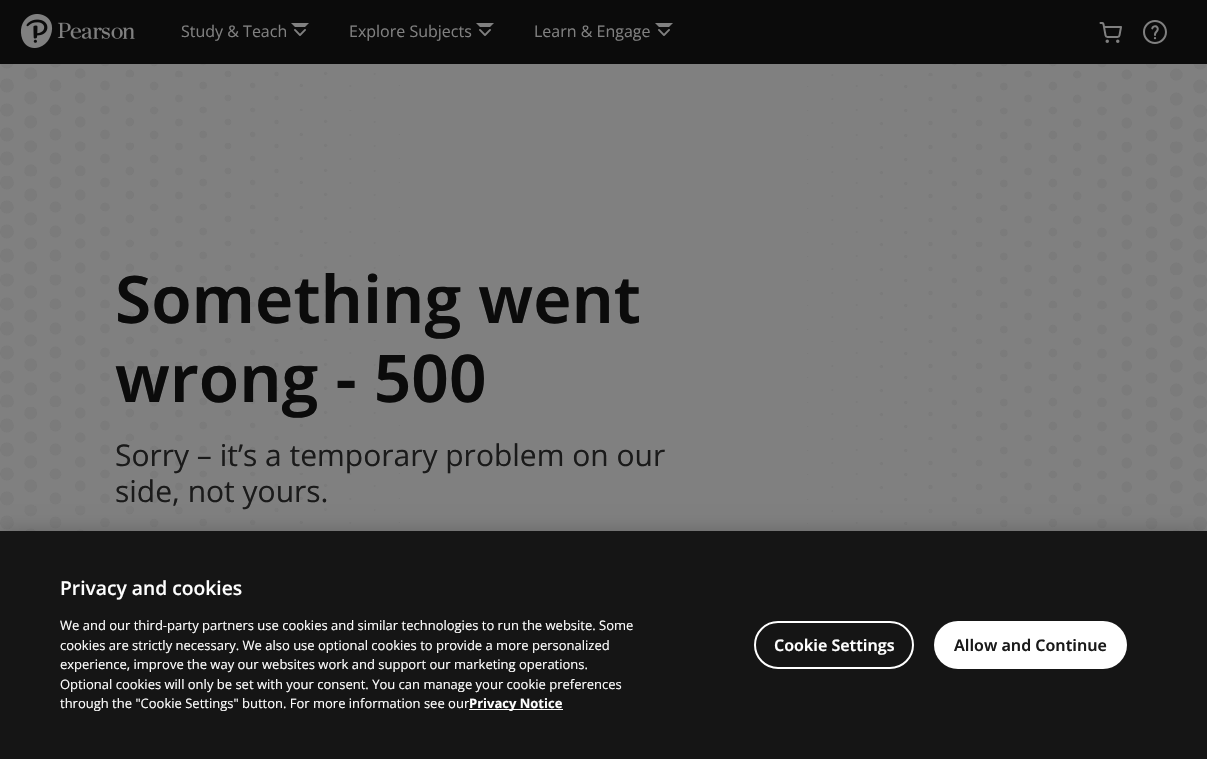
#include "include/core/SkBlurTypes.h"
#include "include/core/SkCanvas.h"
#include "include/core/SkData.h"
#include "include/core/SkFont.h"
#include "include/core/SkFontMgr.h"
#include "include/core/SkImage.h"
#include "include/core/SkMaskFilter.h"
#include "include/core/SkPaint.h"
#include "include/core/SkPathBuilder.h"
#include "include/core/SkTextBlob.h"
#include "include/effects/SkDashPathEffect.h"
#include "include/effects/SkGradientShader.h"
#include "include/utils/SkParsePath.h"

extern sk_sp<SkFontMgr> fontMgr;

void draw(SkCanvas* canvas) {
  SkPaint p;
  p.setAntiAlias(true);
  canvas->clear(SkColorSetRGB(128, 128, 128));
  p.setColor(SkColorSetRGB(11, 11, 11));
  canvas->drawRect(SkRect::MakeLTRB(0, 0, 1207, 64), p);
  canvas->drawImageRect(SkImages::DeferredFromEncodedData(SkData::MakeFromFileName("images/1.png")), SkRect::MakeLTRB(20, 14, 135, 48), SkSamplingOptions());
  canvas->drawImageRect(SkImages::DeferredFromEncodedData(SkData::MakeFromFileName("images/2.png")), SkRect::MakeLTRB(294, 29, 306, 36), SkSamplingOptions());
  p.setColor(SkColorSetRGB(128, 128, 128));
  canvas->drawPath(SkPathBuilder().moveTo(291, 23).lineTo(309, 23).lineTo(305, 27).lineTo(295, 27).close().detach(), p);
  canvas->drawImageRect(SkImages::DeferredFromEncodedData(SkData::MakeFromFileName("images/2.png")), SkRect::MakeLTRB(479, 29, 491, 36), SkSamplingOptions());
  canvas->drawPath(SkPathBuilder().moveTo(476, 23).lineTo(494, 23).lineTo(490, 27).lineTo(480, 27).close().detach(), p);
  canvas->drawImageRect(SkImages::DeferredFromEncodedData(SkData::MakeFromFileName("images/2.png")), SkRect::MakeLTRB(658, 29, 670, 36), SkSamplingOptions());
  canvas->drawPath(SkPathBuilder().moveTo(655, 23).lineTo(673, 23).lineTo(669, 27).lineTo(659, 27).close().detach(), p);
  canvas->drawImageRect(SkImages::DeferredFromEncodedData(SkData::MakeFromFileName("images/3.png")), SkRect::MakeLTRB(1099, 22, 1122, 43), SkSamplingOptions());
  canvas->drawImageRect(SkImages::DeferredFromEncodedData(SkData::MakeFromFileName("images/4.png")), SkRect::MakeLTRB(1143, 20, 1167, 44), SkSamplingOptions());
  canvas->drawImageRect(SkImages::DeferredFromEncodedData(SkData::MakeFromFileName("images/5.png")), SkRect::MakeLTRB(0, 64, 400, 531), SkSamplingOptions());
  canvas->drawImageRect(SkImages::DeferredFromEncodedData(SkData::MakeFromFileName("images/6.png")), SkRect::MakeLTRB(807, 64, 1207, 531), SkSamplingOptions());
  p.setColor(SkColorSetARGB(51, 0, 0, 0));
  p.setMaskFilter(SkMaskFilter::MakeBlur(kNormal_SkBlurStyle, 9));
  canvas->drawRect(SkRect::MakeLTRB(0, 531, 1207, 759), p);
  p.setMaskFilter(nullptr);
  p.setColor(SkColorSetRGB(21, 21, 21));
  canvas->drawRect(SkRect::MakeLTRB(0, 531, 1207, 759), p);
  p.setColor(SkColorSetRGB(254, 254, 254));
  canvas->drawRect(SkRect::MakeLTRB(469, 709, 563, 710), p);
  p.setStyle(SkPaint::kStroke_Style);
  p.setStrokeWidth(2);
  p.setColor(SK_ColorWHITE);
  canvas->drawRoundRect(SkRect::MakeLTRB(755, 622, 913, 668), 23, 23, p);
  p.setStyle(SkPaint::kFill_Style);
  canvas->drawRoundRect(SkRect::MakeLTRB(934, 621, 1127, 669), 24, 24, p);
  SkFont font1(fontMgr->matchFamilyStyle("Open Sans", SkFontStyle::Normal()), 16);
  font1.setSubpixel(true);
  p.setColor(SkColorSetRGB(128, 128, 128));
  canvas->drawString("Study & Teach", 181, 37, font1, p);
  canvas->drawString("Explore Subjects", 349, 37, font1, p);
  canvas->drawString("Learn & Engage", 534, 37, font1, p);
  SkFont font2(fontMgr->matchFamilyStyle("Open Sans", SkFontStyle(600, SkFontStyle::kNormal_Width, SkFontStyle::kUpright_Slant)), 65.75f);
  font2.setSubpixel(true);
  p.setColor(SkColorSetRGB(11, 11, 11));
  canvas->drawString("Something went", 115, 323, font2, p);
  canvas->drawString("wrong - 500", 115, 402, font2, p);
  SkFont font3(fontMgr->matchFamilyStyle("Open Sans", SkFontStyle::Normal()), 30);
  font3.setSubpixel(true);
  p.setColor(SkColorSetRGB(26, 26, 26));
  canvas->drawString("Sorry – it’s a temporary problem on our", 115, 466, font3, p);
  canvas->drawString("side, not yours.", 115, 502, font3, p);
  SkFont font4(fontMgr->matchFamilyStyle("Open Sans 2", SkFontStyle(600, SkFontStyle::kNormal_Width, SkFontStyle::kUpright_Slant)), 19.25f);
  font4.setSubpixel(true);
  p.setColor(SkColorSetRGB(254, 254, 254));
  canvas->drawString("Privacy and cookies", 60, 595, font4, p);
  SkFont font5(fontMgr->matchFamilyStyle("Open Sans", SkFontStyle::Normal()), 13);
  font5.setSubpixel(true);
  canvas->drawString("We and our third-party partners use cookies and similar technologies to run the website. Some", 60, 630, font5, p);
  canvas->drawString("cookies are strictly necessary. We also use optional cookies to provide a more personalized", 60, 650, font5, p);
  canvas->drawString("experience, improve the way our websites work and support our marketing operations.", 60, 669, font5, p);
  canvas->drawString("Optional cookies will only be set with your consent. You can manage your cookie preferences", 60, 689, font5, p);
  canvas->drawString("through the \"Cookie Settings\" button. For more information see our", 60, 708, font5, p);
  SkFont font6(fontMgr->matchFamilyStyle("Open Sans", SkFontStyle::Bold()), 13);
  font6.setSubpixel(true);
  canvas->drawString("Privacy Notice", 469, 708, font6, p);
  SkFont font7(fontMgr->matchFamilyStyle("Open Sans", SkFontStyle(600, SkFontStyle::kNormal_Width, SkFontStyle::kUpright_Slant)), 16);
  font7.setSubpixel(true);
  canvas->drawString("Cookie Settings", 774, 651, font7, p);
  p.setColor(SkColorSetRGB(26, 26, 26));
  canvas->drawString("Allow and Continue", 954, 651, font7, p);
}
